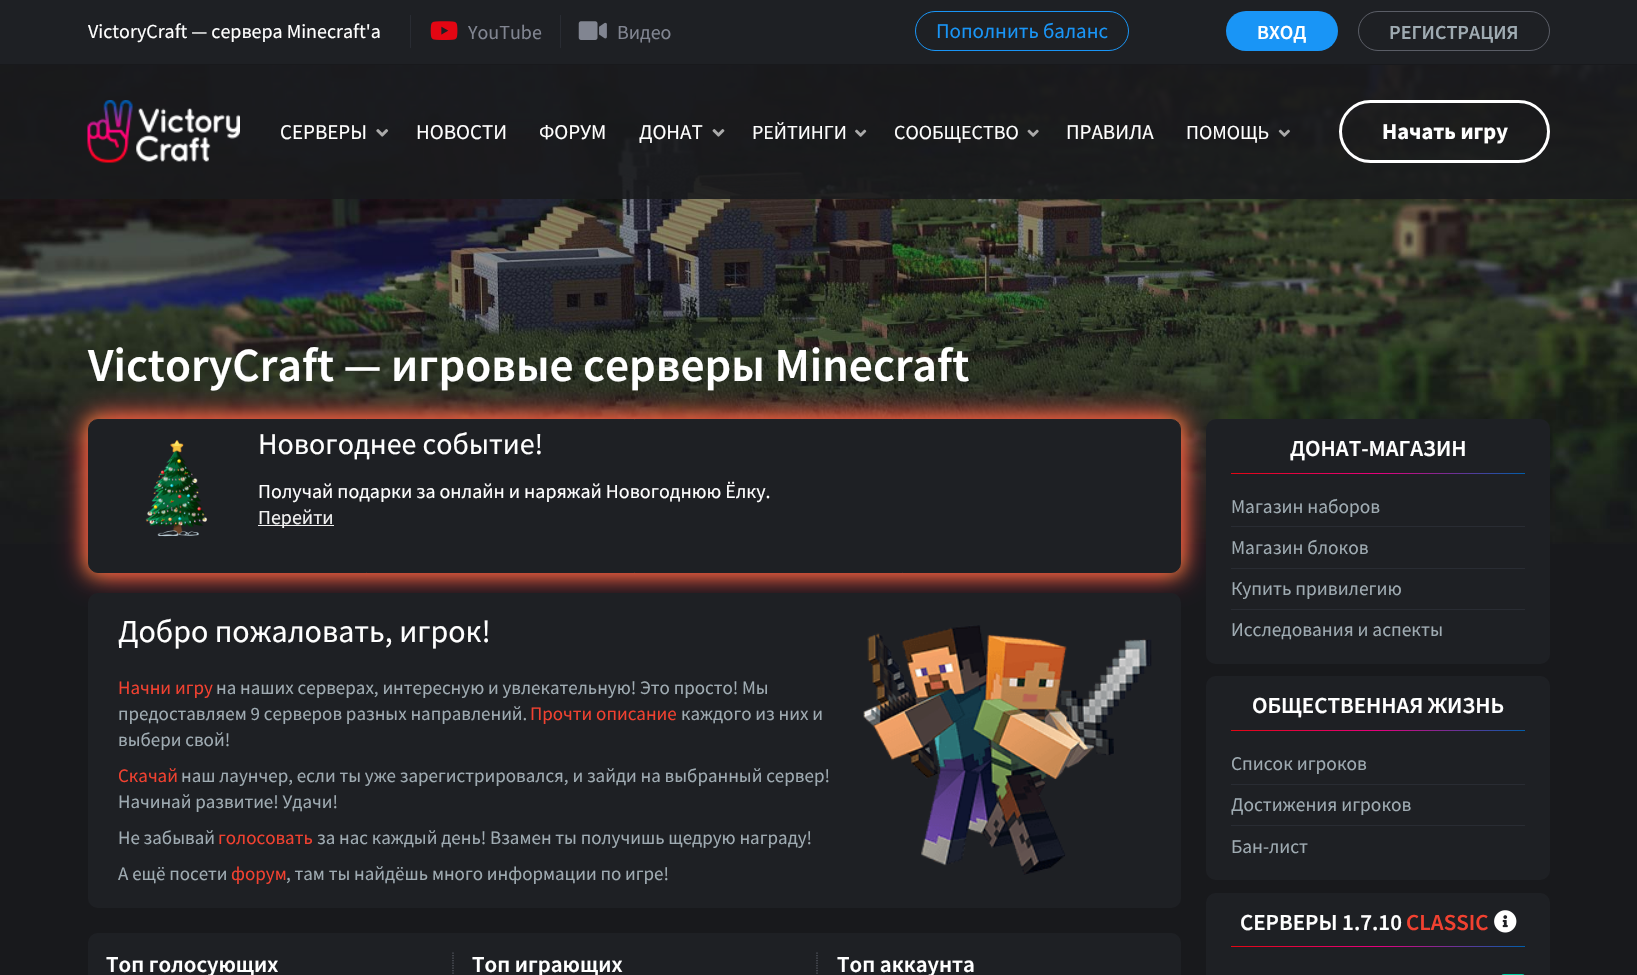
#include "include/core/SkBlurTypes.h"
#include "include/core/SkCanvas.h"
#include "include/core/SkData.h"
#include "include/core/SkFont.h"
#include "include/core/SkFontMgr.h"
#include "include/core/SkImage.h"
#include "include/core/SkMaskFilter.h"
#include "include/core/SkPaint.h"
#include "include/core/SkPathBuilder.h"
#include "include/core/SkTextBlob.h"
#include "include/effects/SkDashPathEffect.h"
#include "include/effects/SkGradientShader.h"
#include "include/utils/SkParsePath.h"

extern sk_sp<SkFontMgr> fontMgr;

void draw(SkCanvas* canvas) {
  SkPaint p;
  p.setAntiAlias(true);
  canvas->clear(SkColorSetRGB(24, 25, 28));
  canvas->drawImageRect(SkImages::DeferredFromEncodedData(SkData::MakeFromFileName("images/1.png")), SkRect::MakeLTRB(0, 65, 1637, 544), SkSamplingOptions());
  p.setColor(SkColorSetRGB(30, 32, 36));
  canvas->drawRect(SkRect::MakeLTRB(0, 0, 1637, 64), p);
  p.setColor(SkColorSetRGB(41, 44, 51));
  canvas->drawRect(SkRect::MakeLTRB(410, 15, 411, 48), p);
  canvas->drawImageRect(SkImages::DeferredFromEncodedData(SkData::MakeFromFileName("images/2.png")), SkRect::MakeLTRB(430, 21, 458, 40), SkSamplingOptions());
  canvas->drawRect(SkRect::MakeLTRB(560, 15, 561, 48), p);
  canvas->drawImageRect(SkImages::DeferredFromEncodedData(SkData::MakeFromFileName("images/3.png")), SkRect::MakeLTRB(578, 21, 607, 40), SkSamplingOptions());
  p.setStyle(SkPaint::kStroke_Style);
  p.setStrokeWidth(1);
  p.setColor(SkColorSetRGB(25, 149, 246));
  canvas->drawRoundRect(SkRect::MakeLTRB(915.5f, 11.5f, 1128.5f, 50.5f), 19.5f, 19.5f, p);
  p.setStyle(SkPaint::kFill_Style);
  canvas->drawRoundRect(SkRect::MakeLTRB(1226, 11, 1338, 51), 20, 20, p);
  p.setStyle(SkPaint::kStroke_Style);
  p.setColor(SkColorSetRGB(90, 93, 102));
  canvas->drawRoundRect(SkRect::MakeLTRB(1358.5f, 11.5f, 1549.5f, 50.5f), 19.5f, 19.5f, p);
  p.setStyle(SkPaint::kFill_Style);
  p.setColor(SkColorSetARGB(230, 24, 25, 28));
  canvas->drawRect(SkRect::MakeLTRB(0, 65, 1637, 199), p);
  canvas->drawImageRect(SkImages::DeferredFromEncodedData(SkData::MakeFromFileName("images/4.png")), SkRect::MakeLTRB(87, 100, 240, 163), SkSamplingOptions());
  canvas->drawImageRect(SkImages::DeferredFromEncodedData(SkData::MakeFromFileName("images/5.png")), SkRect::MakeLTRB(376, 129, 389, 137), SkSamplingOptions());
  canvas->drawImageRect(SkImages::DeferredFromEncodedData(SkData::MakeFromFileName("images/6.png")), SkRect::MakeLTRB(712, 129, 725, 137), SkSamplingOptions());
  canvas->drawImageRect(SkImages::DeferredFromEncodedData(SkData::MakeFromFileName("images/7.png")), SkRect::MakeLTRB(855, 129, 867, 137), SkSamplingOptions());
  canvas->drawImageRect(SkImages::DeferredFromEncodedData(SkData::MakeFromFileName("images/8.png")), SkRect::MakeLTRB(1027, 129, 1039, 137), SkSamplingOptions());
  canvas->drawImageRect(SkImages::DeferredFromEncodedData(SkData::MakeFromFileName("images/9.png")), SkRect::MakeLTRB(1278, 129, 1290, 137), SkSamplingOptions());
  p.setStyle(SkPaint::kStroke_Style);
  p.setStrokeWidth(3);
  p.setColor(SK_ColorWHITE);
  canvas->drawRoundRect(SkRect::MakeLTRB(1340.5f, 101.5f, 1548.5f, 161.5f), 30, 30, p);
  p.setStyle(SkPaint::kFill_Style);
  p.setColor(SkColorSetRGB(255, 235, 59));
  p.setMaskFilter(SkMaskFilter::MakeBlur(kNormal_SkBlurStyle, 9.5f));
  canvas->drawRoundRect(SkRect::MakeLTRB(88, 419, 1181, 573), 10, 10, p);
  p.setMaskFilter(nullptr);
  p.setColor(SkColorSetRGB(255, 23, 68));
  p.setMaskFilter(SkMaskFilter::MakeBlur(kNormal_SkBlurStyle, 15.5f));
  canvas->drawRoundRect(SkRect::MakeLTRB(88, 419, 1181, 573), 10, 10, p);
  p.setMaskFilter(nullptr);
  p.setColor(SkColorSetRGB(30, 32, 36));
  canvas->drawRoundRect(SkRect::MakeLTRB(88.5f, 419.5f, 1180.5f, 572.5f), 9.5f, 9.5f, p);
  p.setStyle(SkPaint::kStroke_Style);
  p.setStrokeWidth(1);
  canvas->drawRoundRect(SkRect::MakeLTRB(88.5f, 419.5f, 1180.5f, 572.5f), 9.5f, 9.5f, p);
  canvas->drawImageRect(SkImages::DeferredFromEncodedData(SkData::MakeFromFileName("images/10.png")), SkRect::MakeLTRB(145, 440, 208, 537), SkSamplingOptions());
  p.setStyle(SkPaint::kFill_Style);
  p.setColor(SkColorSetRGB(242, 242, 242));
  canvas->drawRect(SkRect::MakeLTRB(258, 525, 334, 526), p);
  p.setColor(SkColorSetRGB(30, 32, 36));
  canvas->drawRoundRect(SkRect::MakeLTRB(88, 593, 1181, 908), 10, 10, p);
  canvas->drawImageRect(SkImages::DeferredFromEncodedData(SkData::MakeFromFileName("images/11.png")), SkRect::MakeLTRB(863, 625, 1152, 875), SkSamplingOptions());
  canvas->drawRoundRect(SkRect::MakeLTRB(88, 933, 1181, 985), 10, 10, p);
  p.setStyle(SkPaint::kStroke_Style);
  p.setStrokeWidth(1.2f);
  p.setColor(SkColorSetRGB(90, 93, 102));
  p.setPathEffect(SkDashPathEffect::Make({{1.25f, 1.25f}}, 0));
  canvas->drawPath(SkPathBuilder().moveTo(453, 952.5f).lineTo(453, 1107.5f).detach(), p);
  p.setPathEffect(nullptr);
  p.setPathEffect(SkDashPathEffect::Make({{1.25f, 1.25f}}, 0));
  canvas->drawPath(SkPathBuilder().moveTo(817, 952.5f).lineTo(817, 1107.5f).detach(), p);
  p.setPathEffect(nullptr);
  p.setStyle(SkPaint::kFill_Style);
  p.setColor(SkColorSetRGB(30, 32, 36));
  canvas->drawRoundRect(SkRect::MakeLTRB(1206, 419, 1550, 664), 10, 10, p);
  {
    const SkColor colors[] = {SkColorSetRGB(227, 6, 19), SkColorSetRGB(229, 0, 125), SkColorSetRGB(1, 94, 170)};
    const float stops[] = {0, 0.5f, 1};
    const SkPoint ends[] = {{1231, 473}, {1525, 473}};
    p.setShader(SkGradientShader::MakeLinear(ends, colors, stops, 3, SkTileMode::kClamp));
    p.setAlpha(255);
  }
  canvas->drawRect(SkRect::MakeLTRB(1231, 473, 1525, 474), p);
  p.setShader(nullptr);
  p.setColor(SkColorSetRGB(41, 44, 51));
  canvas->drawRect(SkRect::MakeLTRB(1231, 526, 1525, 527), p);
  canvas->drawRect(SkRect::MakeLTRB(1231, 568, 1525, 569), p);
  canvas->drawRect(SkRect::MakeLTRB(1231, 609, 1525, 610), p);
  p.setColor(SkColorSetRGB(30, 32, 36));
  canvas->drawRoundRect(SkRect::MakeLTRB(1206, 676, 1550, 880), 10, 10, p);
  {
    const SkColor colors[] = {SkColorSetRGB(227, 6, 19), SkColorSetRGB(229, 0, 125), SkColorSetRGB(1, 94, 170)};
    const float stops[] = {0, 0.5f, 1};
    const SkPoint ends[] = {{1231, 731}, {1525, 731}};
    p.setShader(SkGradientShader::MakeLinear(ends, colors, stops, 3, SkTileMode::kClamp));
    p.setAlpha(255);
  }
  canvas->drawRect(SkRect::MakeLTRB(1231, 730, 1525, 731), p);
  p.setShader(nullptr);
  p.setColor(SkColorSetRGB(41, 44, 51));
  canvas->drawRect(SkRect::MakeLTRB(1231, 784, 1525, 785), p);
  canvas->drawRect(SkRect::MakeLTRB(1231, 825, 1525, 826), p);
  p.setColor(SkColorSetRGB(30, 32, 36));
  canvas->drawRoundRect(SkRect::MakeLTRB(1206, 893, 1550, 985), 10, 10, p);
  canvas->drawImageRect(SkImages::DeferredFromEncodedData(SkData::MakeFromFileName("images/12.png")), SkRect::MakeLTRB(1494, 910, 1517, 933), SkSamplingOptions());
  {
    const SkColor colors[] = {SkColorSetRGB(227, 6, 19), SkColorSetRGB(229, 0, 125), SkColorSetRGB(1, 94, 170)};
    const float stops[] = {0, 0.5f, 1};
    const SkPoint ends[] = {{1231, 947}, {1525, 947}};
    p.setShader(SkGradientShader::MakeLinear(ends, colors, stops, 3, SkTileMode::kClamp));
    p.setAlpha(255);
  }
  canvas->drawRect(SkRect::MakeLTRB(1231, 946, 1525, 947), p);
  p.setShader(nullptr);
  p.setColor(SkColorSetRGB(0, 202, 159));
  canvas->drawRoundRect(SkRect::MakeLTRB(1501, 974, 1525, 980), 5, 5, p);
  SkFont font1(fontMgr->matchFamilyStyle("Source Sans Pro", SkFontStyle::Normal()), 20);
  font1.setSubpixel(true);
  p.setColor(SK_ColorWHITE);
  canvas->drawString("VictoryCraft — сервера Minecraft'a", 88, 38, font1, p);
  p.setColor(SkColorSetRGB(129, 133, 145));
  canvas->drawString("YouTube", 468, 39, font1, p);
  canvas->drawString("Видео", 617, 39, font1, p);
  SkFont font2(fontMgr->matchFamilyStyle("Source Sans Pro", SkFontStyle::Normal()), 21);
  font2.setSubpixel(true);
  p.setColor(SkColorSetRGB(25, 149, 246));
  canvas->drawString("Пополнить баланс", 936, 38, font2, p);
  SkFont font3(fontMgr->matchFamilyStyle("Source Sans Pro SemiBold", SkFontStyle(600, SkFontStyle::kNormal_Width, SkFontStyle::kUpright_Slant)), 20);
  font3.setSubpixel(true);
  p.setColor(SK_ColorWHITE);
  canvas->drawString("ВХОД", 1257, 39, font3, p);
  p.setColor(SkColorSetRGB(159, 171, 178));
  canvas->drawString("РЕГИСТРАЦИЯ", 1389, 39, font3, p);
  p.setColor(SK_ColorWHITE);
  canvas->drawString("СЕРВЕРЫ", 280, 139, font2, p);
  canvas->drawString("НОВОСТИ", 416, 139, font2, p);
  canvas->drawString("ФОРУМ", 539, 139, font2, p);
  canvas->drawString("ДОНАТ", 639, 139, font2, p);
  canvas->drawString("РЕЙТИНГИ", 752, 139, font1, p);
  canvas->drawString("СООБЩЕСТВО", 894, 139, font1, p);
  canvas->drawString("ПРАВИЛА", 1066, 139, font2, p);
  canvas->drawString("ПОМОЩЬ", 1186, 139, font1, p);
  SkFont font4(fontMgr->matchFamilyStyle("Source Sans Pro", SkFontStyle::Bold()), 22.5f);
  font4.setSubpixel(true);
  canvas->drawString("Начать игру", 1382, 139, font4, p);
  SkFont font5(fontMgr->matchFamilyStyle("Source Sans Pro SemiBold", SkFontStyle(600, SkFontStyle::kNormal_Width, SkFontStyle::kUpright_Slant)), 47.5f);
  font5.setSubpixel(true);
  canvas->drawString("VictoryCraft — игровые серверы Minecraft", 88, 381, font5, p);
  SkFont font6(fontMgr->matchFamilyStyle("Source Sans Pro", SkFontStyle::Normal()), 30);
  font6.setSubpixel(true);
  canvas->drawString("Новогоднее событие!", 258, 454, font6, p);
  canvas->drawString("Получай подарки за онлайн и наряжай Новогоднюю Ёлку.", 258, 498, font1, p);
  p.setColor(SkColorSetRGB(242, 242, 242));
  canvas->drawString("Перейти", 258, 524, font1, p);
  SkFont font7(fontMgr->matchFamilyStyle("Source Sans Pro", SkFontStyle::Normal()), 32);
  font7.setSubpixel(true);
  p.setColor(SK_ColorWHITE);
  canvas->drawString("Добро пожаловать, игрок!", 118, 642, font7, p);
  SkFont font8(fontMgr->matchFamilyStyle("Source Sans Pro", SkFontStyle::Normal()), 19);
  font8.setSubpixel(true);
  p.setColor(SkColorSetRGB(241, 65, 48));
  canvas->drawString("Начни игру", 118, 694, font8, p);
  p.setColor(SkColorSetRGB(159, 171, 178));
  canvas->drawString("на наших серверах, интересную и увлекательную! Это просто! Мы", 216, 694, font8, p);
  canvas->drawString("предоставляем 9 серверов разных направлений.", 118, 720, font8, p);
  p.setColor(SkColorSetRGB(241, 65, 48));
  canvas->drawString("Прочти описание", 530, 720, font8, p);
  p.setColor(SkColorSetRGB(159, 171, 178));
  canvas->drawString("каждого из них и", 681, 720, font8, p);
  canvas->drawString("выбери свой!", 118, 746, font8, p);
  p.setColor(SkColorSetRGB(241, 65, 48));
  canvas->drawString("Скачай", 118, 782, font8, p);
  p.setColor(SkColorSetRGB(159, 171, 178));
  canvas->drawString("наш лаунчер, если ты уже зарегистрировался, и зайди на выбранный сервер!", 181, 782, font8, p);
  canvas->drawString("Начинай развитие! Удачи!", 118, 808, font8, p);
  canvas->drawString("Не забывай", 118, 844, font8, p);
  p.setColor(SkColorSetRGB(241, 65, 48));
  canvas->drawString("голосовать", 218, 844, font8, p);
  p.setColor(SkColorSetRGB(159, 171, 178));
  canvas->drawString("за нас каждый день! Взамен ты получишь щедрую награду!", 317, 844, font8, p);
  canvas->drawString("А ещё посети", 118, 880, font8, p);
  p.setColor(SkColorSetRGB(241, 65, 48));
  canvas->drawString("форум", 231, 880, font8, p);
  p.setColor(SkColorSetRGB(159, 171, 178));
  canvas->drawString(", там ты найдёшь много информации по игре!", 286, 880, font8, p);
  SkFont font9(fontMgr->matchFamilyStyle("Source Sans Pro SemiBold", SkFontStyle(600, SkFontStyle::kNormal_Width, SkFontStyle::kUpright_Slant)), 23);
  font9.setSubpixel(true);
  p.setColor(SK_ColorWHITE);
  canvas->drawString("Топ голосующих", 106, 972, font9, p);
  canvas->drawString("Топ играющих", 472, 972, font9, p);
  canvas->drawString("Топ аккаунта", 837, 972, font9, p);
  canvas->drawString("ДОНАТ-МАГАЗИН", 1290, 456, font9, p);
  SkFont font10(fontMgr->matchFamilyStyle("Source Sans Pro", SkFontStyle::Normal()), 19.4f);
  font10.setSubpixel(true);
  p.setColor(SkColorSetRGB(159, 171, 178));
  canvas->drawString("Магазин наборов", 1231, 513, font10, p);
  canvas->drawString("Магазин блоков", 1231, 554, font10, p);
  canvas->drawString("Купить привилегию", 1231, 595, font10, p);
  canvas->drawString("Исследования и аспекты", 1231, 636, font10, p);
  p.setColor(SK_ColorWHITE);
  canvas->drawString("ОБЩЕСТВЕННАЯ ЖИЗНЬ", 1252, 713, font9, p);
  p.setColor(SkColorSetRGB(159, 171, 178));
  canvas->drawString("Список игроков", 1231, 770, font10, p);
  canvas->drawString("Достижения игроков", 1231, 811, font10, p);
  canvas->drawString("Бан-лист", 1231, 853, font10, p);
  p.setColor(SK_ColorWHITE);
  canvas->drawString("СЕРВЕРЫ 1.7.10", 1240, 930, font9, p);
  p.setColor(SkColorSetRGB(241, 65, 48));
  canvas->drawString("CLASSIC", 1406, 930, font9, p);
}
